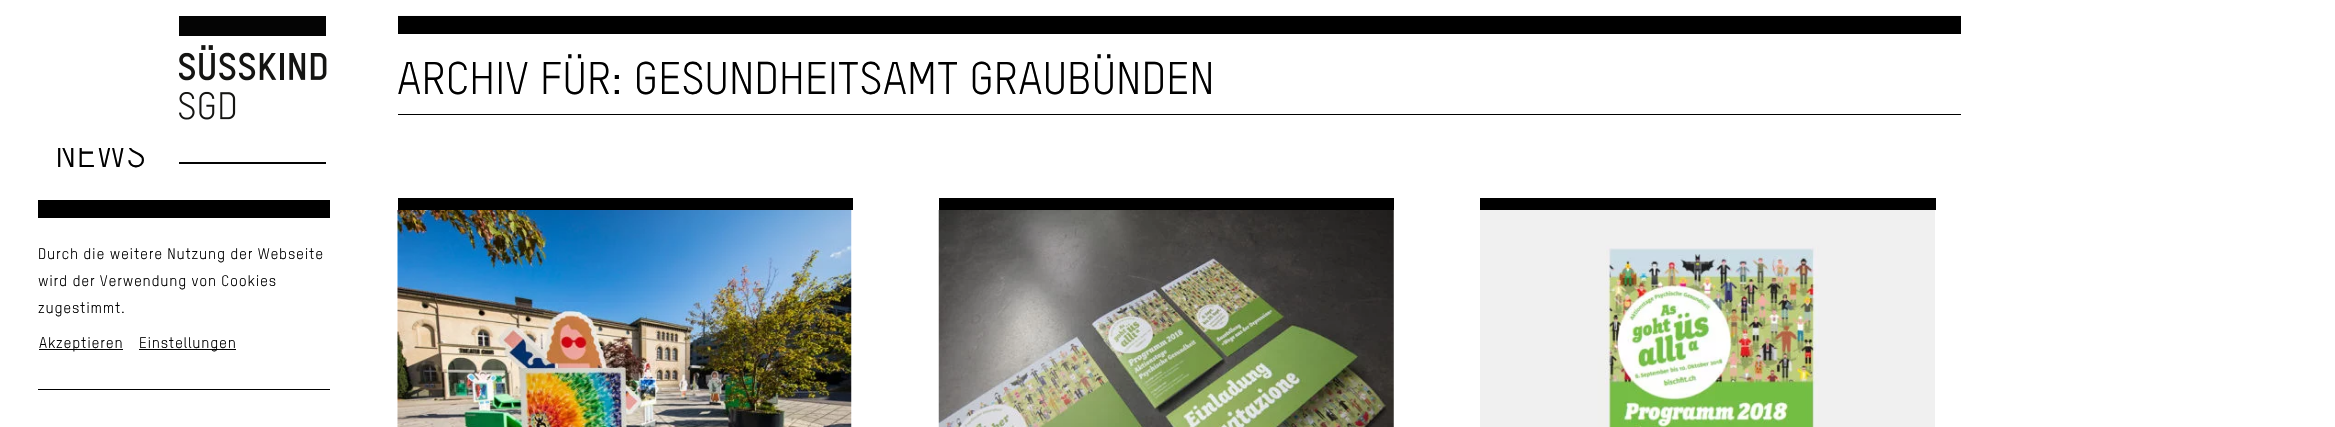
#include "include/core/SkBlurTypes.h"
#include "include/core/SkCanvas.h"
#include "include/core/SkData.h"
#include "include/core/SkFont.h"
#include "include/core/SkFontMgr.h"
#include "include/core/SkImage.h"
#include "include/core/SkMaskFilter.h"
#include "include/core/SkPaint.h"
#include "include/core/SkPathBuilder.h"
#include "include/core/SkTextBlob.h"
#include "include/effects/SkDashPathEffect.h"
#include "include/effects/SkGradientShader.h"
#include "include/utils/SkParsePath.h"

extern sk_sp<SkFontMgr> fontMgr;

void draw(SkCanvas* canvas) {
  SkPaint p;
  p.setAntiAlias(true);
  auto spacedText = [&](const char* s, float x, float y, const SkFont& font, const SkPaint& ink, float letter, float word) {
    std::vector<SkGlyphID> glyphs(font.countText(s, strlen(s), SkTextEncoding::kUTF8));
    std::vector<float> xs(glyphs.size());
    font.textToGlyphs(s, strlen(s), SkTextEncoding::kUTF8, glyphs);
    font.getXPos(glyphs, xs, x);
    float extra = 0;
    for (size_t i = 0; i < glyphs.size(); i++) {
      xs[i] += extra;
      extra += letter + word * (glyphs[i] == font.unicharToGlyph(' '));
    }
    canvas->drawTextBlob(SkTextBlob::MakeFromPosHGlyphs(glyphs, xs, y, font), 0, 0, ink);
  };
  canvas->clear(SK_ColorWHITE);
  canvas->drawImageRect(SkImages::DeferredFromEncodedData(SkData::MakeFromFileName("images/1.png")), SkRect::MakeLTRB(179, 16, 327, 164), SkSamplingOptions());
  p.setColor(SkColorSetRGB(248, 248, 248));
  canvas->drawRect(SkRect::MakeLTRB(398, 15, 1961, 16), p);
  p.setColor(SK_ColorBLACK);
  canvas->drawRect(SkRect::MakeLTRB(398, 16, 1961, 34), p);
  canvas->drawRect(SkRect::MakeLTRB(398, 114, 1961, 115), p);
  canvas->drawRect(SkRect::MakeLTRB(398, 198, 853, 210), p);
  canvas->drawImageRect(SkImages::DeferredFromEncodedData(SkData::MakeFromFileName("images/2.png")), SkRect::MakeLTRB(397, 210, 852, 427), SkSamplingOptions());
  canvas->drawRect(SkRect::MakeLTRB(939, 198, 1394, 210), p);
  canvas->drawImageRect(SkImages::DeferredFromEncodedData(SkData::MakeFromFileName("images/3.png")), SkRect::MakeLTRB(938, 210, 1394, 427), SkSamplingOptions());
  canvas->drawRect(SkRect::MakeLTRB(1480, 198, 1936, 210), p);
  canvas->drawImageRect(SkImages::DeferredFromEncodedData(SkData::MakeFromFileName("images/4.png")), SkRect::MakeLTRB(1480, 210, 1935, 427), SkSamplingOptions());
  canvas->drawRect(SkRect::MakeLTRB(38, 200, 330, 218), p);
  canvas->drawRect(SkRect::MakeLTRB(38, 389, 330, 390), p);
  canvas->drawRect(SkRect::MakeLTRB(39, 349, 123, 350), p);
  canvas->drawRect(SkRect::MakeLTRB(139, 349, 236, 350), p);
  SkFont font1(fontMgr->matchFamilyStyle("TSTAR", SkFontStyle::Normal()), 45);
  font1.setSubpixel(true);
  canvas->drawString("ARCHIV FÜR: GESUNDHEITSAMT GRAUBÜNDEN", 397, 94, font1, p);
  SkFont font2(fontMgr->matchFamilyStyle("TSTAR", SkFontStyle::Normal()), 38);
  font2.setSubpixel(true);
  canvas->drawString("NEWS", 55, 167, font2, p);
  p.setColor(SK_ColorWHITE);
  canvas->drawRect(SkRect::MakeLTRB(58, 139, 145, 148), p);
  SkFont font3(fontMgr->matchFamilyStyle("TSTAR", SkFontStyle::Normal()), 15);
  font3.setSubpixel(true);
  p.setColor(SK_ColorBLACK);
  spacedText("Durch die weitere Nutzung der Webseite", 38, 259, font3, p, 0.75f, 0);
  spacedText("wird der Verwendung von Cookies", 38, 286, font3, p, 0.75f, 0);
  spacedText("zugestimmt.", 38, 313, font3, p, 0.75f, 0);
  spacedText("Akzeptieren", 39, 348, font3, p, 0.75f, 0);
  spacedText("Einstellungen", 139, 348, font3, p, 0.75f, 0);
}
